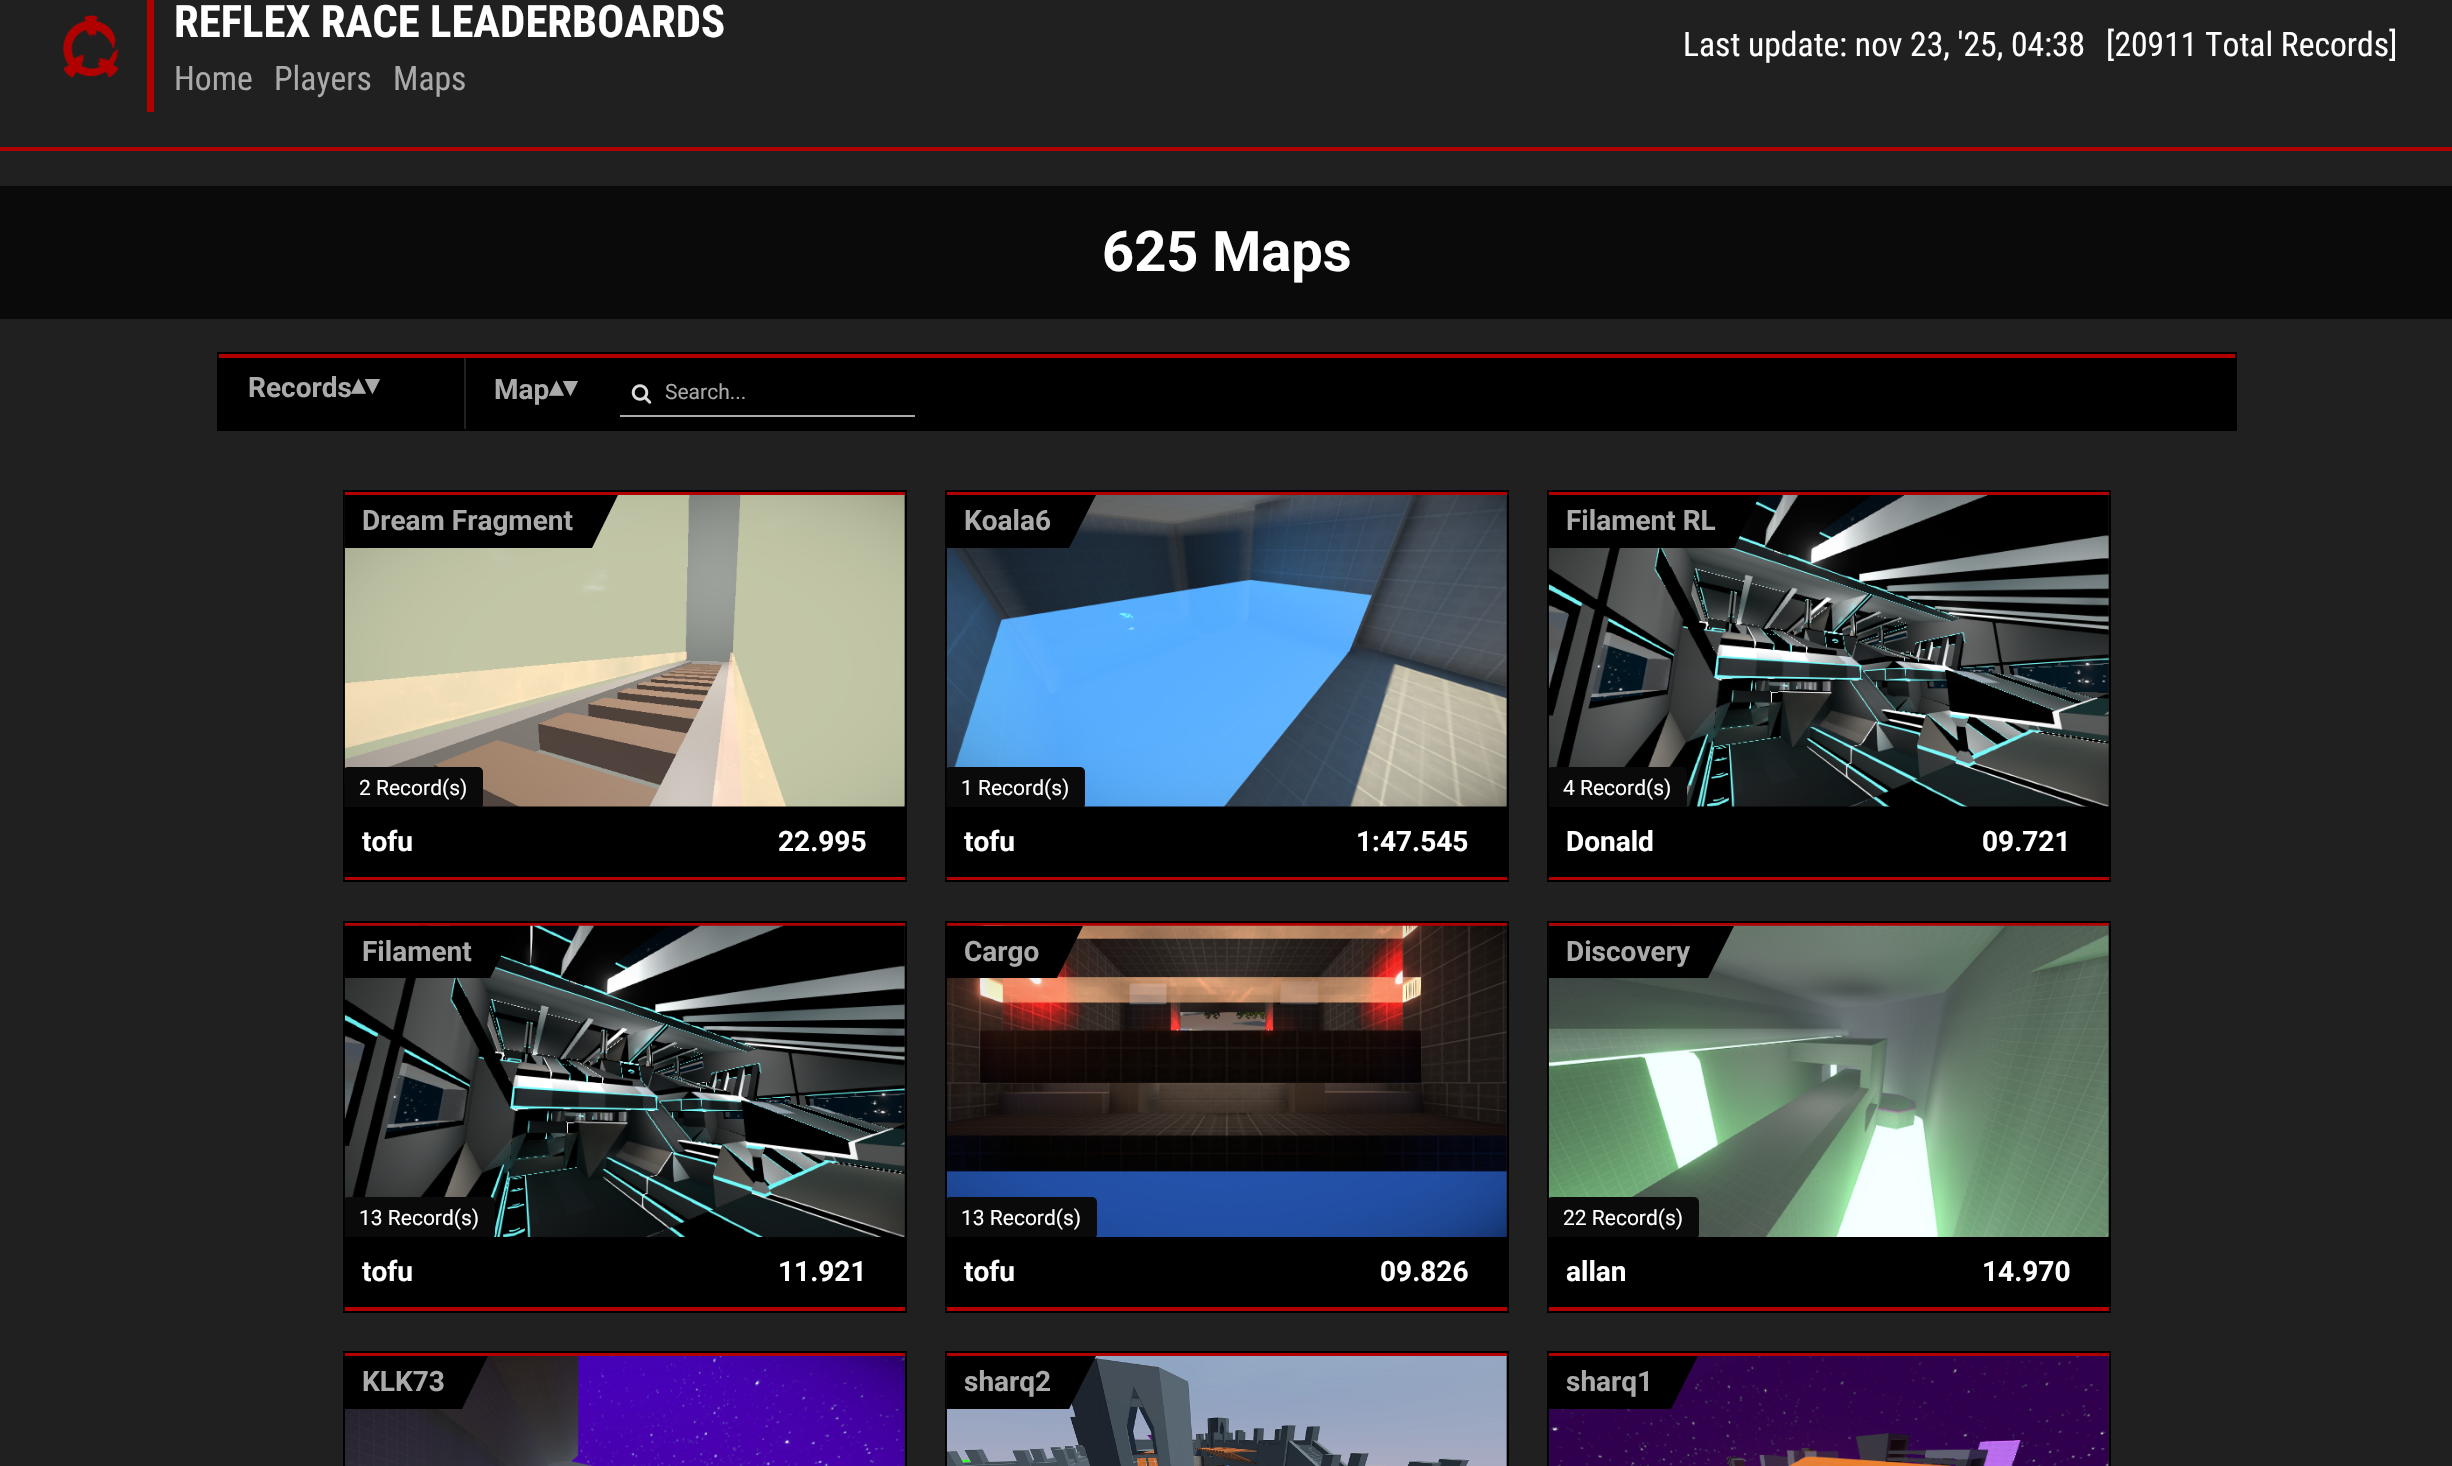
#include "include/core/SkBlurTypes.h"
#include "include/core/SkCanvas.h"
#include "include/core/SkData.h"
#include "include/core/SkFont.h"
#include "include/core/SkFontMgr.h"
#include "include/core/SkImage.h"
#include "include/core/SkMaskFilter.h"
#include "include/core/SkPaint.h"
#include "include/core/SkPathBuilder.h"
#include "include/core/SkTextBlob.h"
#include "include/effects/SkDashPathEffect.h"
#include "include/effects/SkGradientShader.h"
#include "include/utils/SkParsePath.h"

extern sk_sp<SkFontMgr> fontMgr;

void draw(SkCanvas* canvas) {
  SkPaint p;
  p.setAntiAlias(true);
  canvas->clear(SkColorSetRGB(32, 32, 32));
  canvas->drawImageRect(SkImages::DeferredFromEncodedData(SkData::MakeFromFileName("images/1.png")), SkRect::MakeLTRB(63, 15, 119, 78), SkSamplingOptions());
  p.setColor(SkColorSetRGB(176, 0, 0));
  canvas->drawRect(SkRect::MakeLTRB(147, 0, 154, 112), p);
  canvas->drawRect(SkRect::MakeLTRB(0, 147, 2452, 151), p);
  p.setColor(SkColorSetRGB(10, 10, 10));
  canvas->drawRect(SkRect::MakeLTRB(0, 186, 2452, 319), p);
  p.setColor(SkColorSetRGB(176, 0, 0));
  canvas->drawRect(SkRect::MakeLTRB(219, 354, 2235, 358), p);
  p.setColor(SK_ColorBLACK);
  canvas->drawRect(SkRect::MakeLTRB(219, 358, 464, 429), p);
  canvas->drawRect(SkRect::MakeLTRB(466, 358, 2235, 429), p);
  p.setStyle(SkPaint::kStroke_Style);
  p.setStrokeWidth(2);
  canvas->drawRect(SkRect::MakeLTRB(218, 353, 2236, 430), p);
  canvas->drawImageRect(SkImages::DeferredFromEncodedData(SkData::MakeFromFileName("images/2.png")), SkRect::MakeLTRB(631, 384, 652, 404), SkSamplingOptions());
  p.setStyle(SkPaint::kFill_Style);
  p.setColor(SkColorSetRGB(170, 170, 170));
  canvas->drawRect(SkRect::MakeLTRB(620, 415, 915, 417), p);
  p.setColor(SkColorSetRGB(176, 0, 0));
  canvas->drawRect(SkRect::MakeLTRB(345, 492, 905, 496), p);
  canvas->drawRect(SkRect::MakeLTRB(345, 877, 905, 880), p);
  p.setColor(SK_ColorBLACK);
  canvas->drawRect(SkRect::MakeLTRB(345, 809, 905, 877), p);
  p.setStyle(SkPaint::kStroke_Style);
  canvas->drawRect(SkRect::MakeLTRB(344, 806, 906, 881), p);
  canvas->drawRect(SkRect::MakeLTRB(344, 491, 906, 808), p);
  canvas->drawImageRect(SkImages::DeferredFromEncodedData(SkData::MakeFromFileName("images/3.png")), SkRect::MakeLTRB(344, 495, 905, 807), SkSamplingOptions());
  p.setStyle(SkPaint::kFill_Style);
  canvas->drawPath(SkPathBuilder().moveTo(345, 495).lineTo(618, 495).lineTo(592, 548).lineTo(345, 548).close().detach(), p);
  canvas->save();
  canvas->clipRect(SkRect::MakeLTRB(345, 495, 905, 807));
  p.setColor(SkColorSetRGB(10, 10, 10));
  canvas->drawRoundRect(SkRect::MakeLTRB(343, 767, 483, 809), 5, 5, p);
  canvas->restore();
  p.setColor(SkColorSetRGB(176, 0, 0));
  canvas->drawRect(SkRect::MakeLTRB(947, 492, 1507, 496), p);
  canvas->drawRect(SkRect::MakeLTRB(947, 877, 1507, 880), p);
  p.setColor(SK_ColorBLACK);
  canvas->drawRect(SkRect::MakeLTRB(947, 809, 1507, 877), p);
  p.setStyle(SkPaint::kStroke_Style);
  canvas->drawRect(SkRect::MakeLTRB(946, 806, 1508, 881), p);
  canvas->drawRect(SkRect::MakeLTRB(946, 491, 1508, 808), p);
  canvas->drawImageRect(SkImages::DeferredFromEncodedData(SkData::MakeFromFileName("images/4.png")), SkRect::MakeLTRB(946, 495, 1507, 807), SkSamplingOptions());
  p.setStyle(SkPaint::kFill_Style);
  canvas->drawPath(SkPathBuilder().moveTo(947, 495).lineTo(1096, 495).lineTo(1069, 548).lineTo(947, 548).close().detach(), p);
  canvas->save();
  canvas->clipRect(SkRect::MakeLTRB(947, 495, 1507, 807));
  p.setColor(SkColorSetRGB(10, 10, 10));
  canvas->drawRoundRect(SkRect::MakeLTRB(945, 767, 1085, 809), 5, 5, p);
  canvas->restore();
  p.setColor(SkColorSetRGB(176, 0, 0));
  canvas->drawRect(SkRect::MakeLTRB(1549, 492, 2109, 496), p);
  canvas->drawRect(SkRect::MakeLTRB(1549, 877, 2109, 880), p);
  p.setColor(SK_ColorBLACK);
  canvas->drawRect(SkRect::MakeLTRB(1549, 809, 2109, 877), p);
  p.setStyle(SkPaint::kStroke_Style);
  canvas->drawRect(SkRect::MakeLTRB(1548, 806, 2110, 881), p);
  canvas->drawRect(SkRect::MakeLTRB(1548, 491, 2110, 808), p);
  canvas->drawImageRect(SkImages::DeferredFromEncodedData(SkData::MakeFromFileName("images/5.png")), SkRect::MakeLTRB(1548, 495, 2109, 807), SkSamplingOptions());
  p.setStyle(SkPaint::kFill_Style);
  canvas->drawPath(SkPathBuilder().moveTo(1549, 495).lineTo(1760, 495).lineTo(1734, 548).lineTo(1549, 548).close().detach(), p);
  canvas->save();
  canvas->clipRect(SkRect::MakeLTRB(1549, 495, 2109, 807));
  p.setColor(SkColorSetRGB(10, 10, 10));
  canvas->drawRoundRect(SkRect::MakeLTRB(1547, 767, 1687, 809), 5, 5, p);
  canvas->restore();
  p.setColor(SkColorSetRGB(176, 0, 0));
  canvas->drawRect(SkRect::MakeLTRB(345, 923, 905, 926), p);
  canvas->drawRect(SkRect::MakeLTRB(345, 1307, 905, 1311), p);
  p.setColor(SK_ColorBLACK);
  canvas->drawRect(SkRect::MakeLTRB(345, 1239, 905, 1307), p);
  p.setStyle(SkPaint::kStroke_Style);
  canvas->drawRect(SkRect::MakeLTRB(344, 1237, 906, 1312), p);
  canvas->drawRect(SkRect::MakeLTRB(344, 922, 906, 1238), p);
  canvas->drawImageRect(SkImages::DeferredFromEncodedData(SkData::MakeFromFileName("images/6.png")), SkRect::MakeLTRB(344, 925, 905, 1237), SkSamplingOptions());
  p.setStyle(SkPaint::kFill_Style);
  canvas->drawPath(SkPathBuilder().moveTo(345, 926).lineTo(516, 926).lineTo(490, 978).lineTo(345, 978).close().detach(), p);
  canvas->save();
  canvas->clipRect(SkRect::MakeLTRB(345, 926, 905, 1237));
  p.setColor(SkColorSetRGB(10, 10, 10));
  canvas->drawRoundRect(SkRect::MakeLTRB(343, 1197, 495, 1239), 5, 5, p);
  canvas->restore();
  p.setColor(SkColorSetRGB(176, 0, 0));
  canvas->drawRect(SkRect::MakeLTRB(947, 923, 1507, 926), p);
  canvas->drawRect(SkRect::MakeLTRB(947, 1307, 1507, 1311), p);
  p.setColor(SK_ColorBLACK);
  canvas->drawRect(SkRect::MakeLTRB(947, 1239, 1507, 1307), p);
  p.setStyle(SkPaint::kStroke_Style);
  canvas->drawRect(SkRect::MakeLTRB(946, 1237, 1508, 1312), p);
  canvas->drawRect(SkRect::MakeLTRB(946, 922, 1508, 1238), p);
  canvas->drawImageRect(SkImages::DeferredFromEncodedData(SkData::MakeFromFileName("images/7.png")), SkRect::MakeLTRB(946, 925, 1507, 1237), SkSamplingOptions());
  p.setStyle(SkPaint::kFill_Style);
  canvas->drawPath(SkPathBuilder().moveTo(947, 926).lineTo(1083, 926).lineTo(1057, 978).lineTo(947, 978).close().detach(), p);
  canvas->save();
  canvas->clipRect(SkRect::MakeLTRB(947, 926, 1507, 1237));
  p.setColor(SkColorSetRGB(10, 10, 10));
  canvas->drawRoundRect(SkRect::MakeLTRB(945, 1197, 1097, 1239), 5, 5, p);
  canvas->restore();
  p.setColor(SkColorSetRGB(176, 0, 0));
  canvas->drawRect(SkRect::MakeLTRB(1549, 923, 2109, 926), p);
  canvas->drawRect(SkRect::MakeLTRB(1549, 1307, 2109, 1311), p);
  p.setColor(SK_ColorBLACK);
  canvas->drawRect(SkRect::MakeLTRB(1549, 1239, 2109, 1307), p);
  p.setStyle(SkPaint::kStroke_Style);
  canvas->drawRect(SkRect::MakeLTRB(1548, 1237, 2110, 1312), p);
  canvas->drawRect(SkRect::MakeLTRB(1548, 922, 2110, 1238), p);
  canvas->drawImageRect(SkImages::DeferredFromEncodedData(SkData::MakeFromFileName("images/8.png")), SkRect::MakeLTRB(1548, 925, 2109, 1237), SkSamplingOptions());
  p.setStyle(SkPaint::kFill_Style);
  canvas->drawPath(SkPathBuilder().moveTo(1549, 926).lineTo(1734, 926).lineTo(1708, 978).lineTo(1549, 978).close().detach(), p);
  canvas->save();
  canvas->clipRect(SkRect::MakeLTRB(1549, 926, 2109, 1237));
  p.setColor(SkColorSetRGB(10, 10, 10));
  canvas->drawRoundRect(SkRect::MakeLTRB(1547, 1197, 1699, 1239), 5, 5, p);
  canvas->restore();
  p.setColor(SkColorSetRGB(176, 0, 0));
  canvas->drawRect(SkRect::MakeLTRB(345, 1353, 905, 1357), p);
  p.setStyle(SkPaint::kStroke_Style);
  p.setColor(SK_ColorBLACK);
  canvas->drawRect(SkRect::MakeLTRB(344, 1352, 906, 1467), p);
  canvas->drawImageRect(SkImages::DeferredFromEncodedData(SkData::MakeFromFileName("images/9.png")), SkRect::MakeLTRB(345, 1356, 905, 1466), SkSamplingOptions());
  p.setStyle(SkPaint::kFill_Style);
  canvas->drawPath(SkPathBuilder().moveTo(345, 1356).lineTo(488, 1356).lineTo(462, 1409).lineTo(345, 1409).close().detach(), p);
  p.setColor(SkColorSetRGB(176, 0, 0));
  canvas->drawRect(SkRect::MakeLTRB(947, 1353, 1507, 1357), p);
  p.setStyle(SkPaint::kStroke_Style);
  p.setColor(SK_ColorBLACK);
  canvas->drawRect(SkRect::MakeLTRB(946, 1352, 1508, 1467), p);
  canvas->drawImageRect(SkImages::DeferredFromEncodedData(SkData::MakeFromFileName("images/10.png")), SkRect::MakeLTRB(946, 1356, 1507, 1466), SkSamplingOptions());
  p.setStyle(SkPaint::kFill_Style);
  canvas->drawPath(SkPathBuilder().moveTo(947, 1356).lineTo(1096, 1356).lineTo(1069, 1409).lineTo(947, 1409).close().detach(), p);
  p.setColor(SkColorSetRGB(176, 0, 0));
  canvas->drawRect(SkRect::MakeLTRB(1549, 1353, 2109, 1357), p);
  p.setStyle(SkPaint::kStroke_Style);
  p.setColor(SK_ColorBLACK);
  canvas->drawRect(SkRect::MakeLTRB(1548, 1352, 2110, 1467), p);
  canvas->drawImageRect(SkImages::DeferredFromEncodedData(SkData::MakeFromFileName("images/11.png")), SkRect::MakeLTRB(1548, 1356, 2109, 1466), SkSamplingOptions());
  p.setStyle(SkPaint::kFill_Style);
  canvas->drawPath(SkPathBuilder().moveTo(1549, 1356).lineTo(1698, 1356).lineTo(1671, 1409).lineTo(1549, 1409).close().detach(), p);
  SkFont font1(fontMgr->matchFamilyStyle("Roboto Condensed", SkFontStyle::Bold()), 44.75f);
  font1.setSubpixel(true);
  p.setColor(SK_ColorWHITE);
  canvas->drawString("REFLEX RACE LEADERBOARDS", 174, 37, font1, p);
  SkFont font2(fontMgr->matchFamilyStyle("Roboto Condensed", SkFontStyle::Normal()), 33.6f);
  font2.setSubpixel(true);
  p.setColor(SkColorSetRGB(170, 170, 170));
  canvas->drawString("Home", 174, 90, font2, p);
  canvas->drawString("Players", 274, 90, font2, p);
  canvas->drawString("Maps", 393, 90, font2, p);
  p.setColor(SK_ColorWHITE);
  canvas->drawString("Last update: nov 23, '25, 04:38", 1683, 56, font2, p);
  canvas->drawString("[20911 Total Records]", 2106, 56, font2, p);
  SkFont font3(fontMgr->matchFamilyStyle("Roboto", SkFontStyle::Bold()), 56);
  font3.setSubpixel(true);
  canvas->drawString("625 Maps", 1102, 271, font3, p);
  SkFont font4(fontMgr->matchFamilyStyle("Roboto", SkFontStyle::Bold()), 28);
  font4.setSubpixel(true);
  p.setColor(SkColorSetRGB(170, 170, 170));
  canvas->drawString("Records", 248, 397, font4, p);
  SkFont font5(fontMgr->matchFamilyStyle("DejaVu Sans", SkFontStyle::Bold()), 28);
  font5.setSubpixel(true);
  canvas->drawString("▴▾", 351, 394, font5, p);
  canvas->drawString("Map", 494, 399, font4, p);
  canvas->drawString("▴▾", 549, 396, font5, p);
  SkFont font6(fontMgr->matchFamilyStyle("Roboto", SkFontStyle::Normal()), 21);
  font6.setSubpixel(true);
  canvas->drawString("Search...", 665, 399, font6, p);
  canvas->drawString("Dream Fragment", 362, 530, font4, p);
  p.setColor(SK_ColorWHITE);
  canvas->drawString("2 Record(s)", 359, 795, font6, p);
  canvas->drawString("tofu", 362, 851, font4, p);
  canvas->drawString("22.995", 778, 851, font4, p);
  p.setColor(SkColorSetRGB(170, 170, 170));
  canvas->drawString("Koala6", 964, 530, font4, p);
  p.setColor(SK_ColorWHITE);
  canvas->drawString("1 Record(s)", 961, 795, font6, p);
  canvas->drawString("tofu", 964, 851, font4, p);
  canvas->drawString("1:47.545", 1356, 851, font4, p);
  p.setColor(SkColorSetRGB(170, 170, 170));
  canvas->drawString("Filament RL", 1566, 530, font4, p);
  p.setColor(SK_ColorWHITE);
  canvas->drawString("4 Record(s)", 1563, 795, font6, p);
  canvas->drawString("Donald", 1566, 851, font4, p);
  canvas->drawString("09.721", 1982, 851, font4, p);
  p.setColor(SkColorSetRGB(170, 170, 170));
  canvas->drawString("Filament", 362, 961, font4, p);
  p.setColor(SK_ColorWHITE);
  canvas->drawString("13 Record(s)", 359, 1225, font6, p);
  canvas->drawString("tofu", 362, 1281, font4, p);
  canvas->drawString("11.921", 778, 1281, font4, p);
  p.setColor(SkColorSetRGB(170, 170, 170));
  canvas->drawString("Cargo", 964, 961, font4, p);
  p.setColor(SK_ColorWHITE);
  canvas->drawString("13 Record(s)", 961, 1225, font6, p);
  canvas->drawString("tofu", 964, 1281, font4, p);
  canvas->drawString("09.826", 1380, 1281, font4, p);
  p.setColor(SkColorSetRGB(170, 170, 170));
  canvas->drawString("Discovery", 1566, 961, font4, p);
  p.setColor(SK_ColorWHITE);
  canvas->drawString("22 Record(s)", 1563, 1225, font6, p);
  canvas->drawString("allan", 1566, 1281, font4, p);
  canvas->drawString("14.970", 1982, 1281, font4, p);
  p.setColor(SkColorSetRGB(170, 170, 170));
  canvas->drawString("KLK73", 362, 1391, font4, p);
  canvas->drawString("sharq2", 964, 1391, font4, p);
  canvas->drawString("sharq1", 1566, 1391, font4, p);
}
